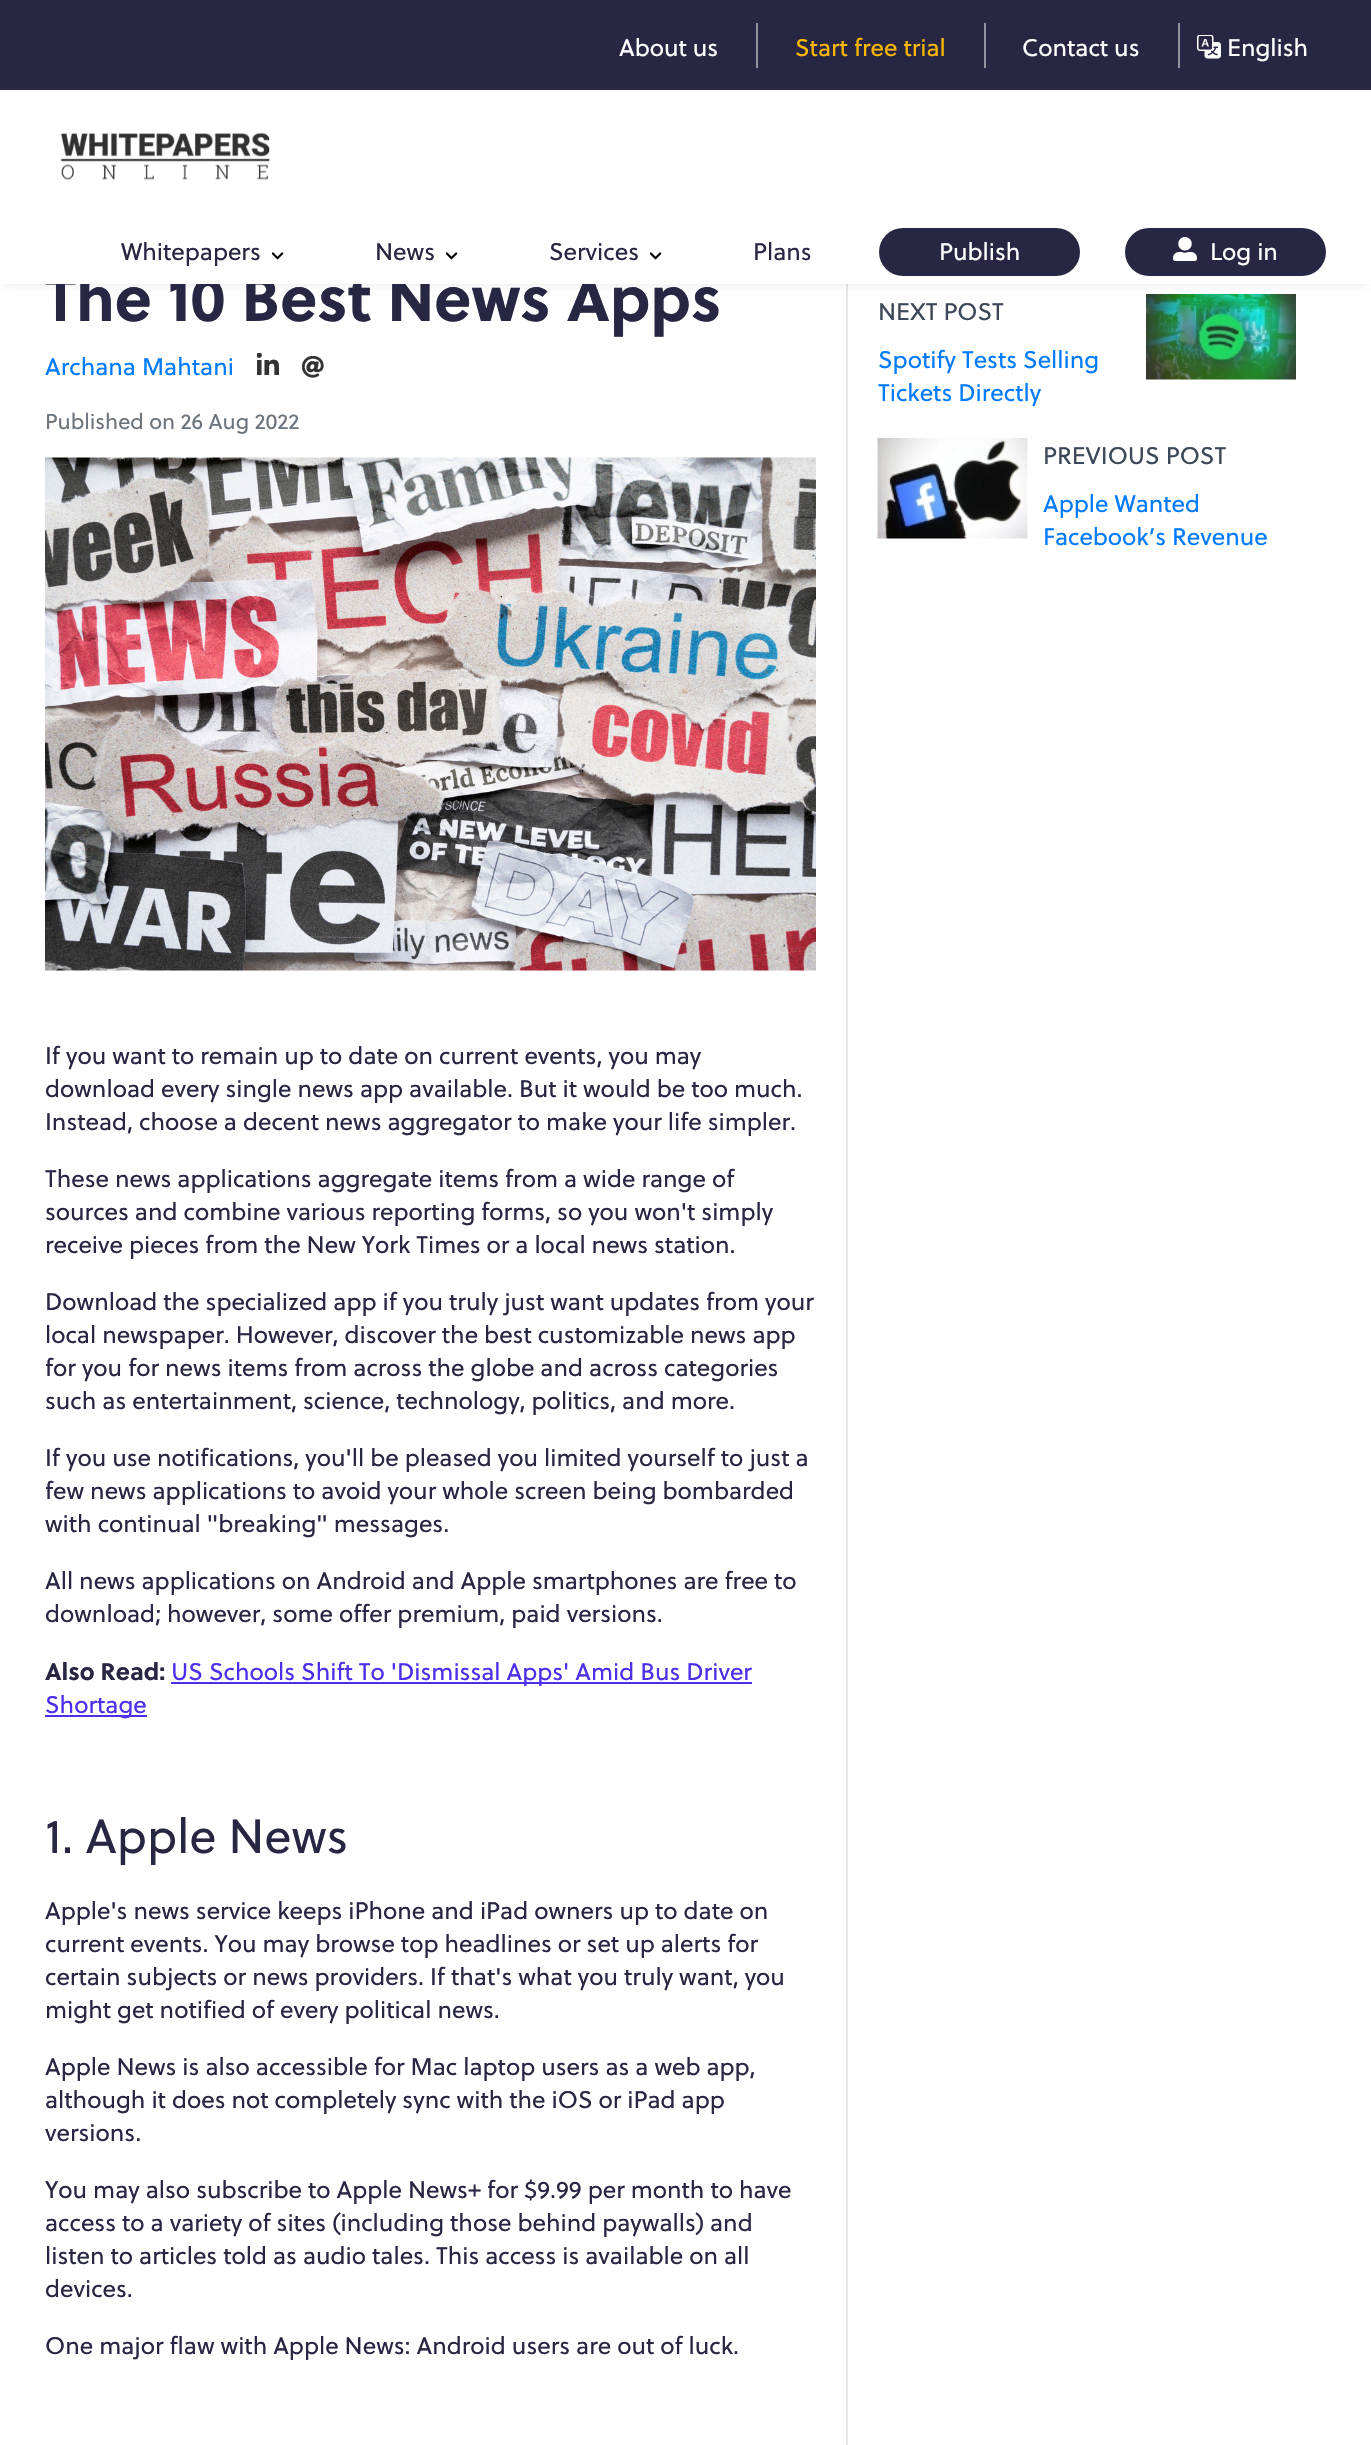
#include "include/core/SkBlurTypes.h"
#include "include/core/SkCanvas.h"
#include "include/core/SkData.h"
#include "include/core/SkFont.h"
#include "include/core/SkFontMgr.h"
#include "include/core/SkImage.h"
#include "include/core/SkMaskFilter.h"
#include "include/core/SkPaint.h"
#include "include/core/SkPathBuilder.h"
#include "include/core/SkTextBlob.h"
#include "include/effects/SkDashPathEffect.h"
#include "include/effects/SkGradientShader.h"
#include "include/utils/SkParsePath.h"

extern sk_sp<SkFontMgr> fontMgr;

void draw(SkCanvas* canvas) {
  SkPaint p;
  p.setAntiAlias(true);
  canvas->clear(SK_ColorWHITE);
  p.setColor(SkColorSetRGB(230, 230, 230));
  canvas->drawRect(SkRect::MakeLTRB(846, 284, 848, 2445), p);
  canvas->drawImageRect(SkImages::DeferredFromEncodedData(SkData::MakeFromFileName("images/8.png")), SkRect::MakeLTRB(1146, 294, 1296, 380), SkSamplingOptions());
  p.setColor(SkColorSetARGB(26, 0, 0, 0));
  p.setMaskFilter(SkMaskFilter::MakeBlur(kNormal_SkBlurStyle, 4.5f));
  canvas->drawRect(SkRect::MakeLTRB(5, 9, 1367, 284), p);
  p.setMaskFilter(nullptr);
  p.setColor(SkColorSetRGB(39, 38, 67));
  canvas->drawRect(SkRect::MakeLTRB(0, 0, 1371, 90), p);
  p.setColor(SkColorSetRGB(147, 147, 161));
  canvas->drawRect(SkRect::MakeLTRB(756, 23, 758, 68), p);
  canvas->drawRect(SkRect::MakeLTRB(984, 23, 986, 68), p);
  canvas->drawRect(SkRect::MakeLTRB(1178, 23, 1180, 68), p);
  canvas->drawImageRect(SkImages::DeferredFromEncodedData(SkData::MakeFromFileName("images/1.png")), SkRect::MakeLTRB(1197, 35, 1221, 59), SkSamplingOptions());
  canvas->drawImageRect(SkImages::DeferredFromEncodedData(SkData::MakeFromFileName("images/5.png")), SkRect::MakeLTRB(257, 353, 279, 375), SkSamplingOptions());
  canvas->drawImageRect(SkImages::DeferredFromEncodedData(SkData::MakeFromFileName("images/6.png")), SkRect::MakeLTRB(302, 356, 324, 378), SkSamplingOptions());
  canvas->drawImageRect(SkImages::DeferredFromEncodedData(SkData::MakeFromFileName("images/7.png")), SkRect::MakeLTRB(45, 457, 816, 971), SkSamplingOptions());
  p.setColor(SkColorSetRGB(75, 47, 235));
  canvas->drawRect(SkRect::MakeLTRB(171, 1682, 752, 1684), p);
  canvas->drawRect(SkRect::MakeLTRB(45, 1715, 147, 1717), p);
  canvas->drawImageRect(SkImages::DeferredFromEncodedData(SkData::MakeFromFileName("images/9.png")), SkRect::MakeLTRB(877, 438, 1028, 539), SkSamplingOptions());
  SkFont font1(fontMgr->matchFamilyStyle("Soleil", SkFontStyle::Normal()), 24);
  font1.setSubpixel(true);
  p.setColor(SK_ColorWHITE);
  canvas->drawString("About us", 619, 56, font1, p);
  p.setColor(SkColorSetRGB(255, 184, 0));
  canvas->drawString("Start free trial", 795, 56, font1, p);
  p.setColor(SK_ColorWHITE);
  canvas->drawString("Contact us", 1022, 56, font1, p);
  canvas->drawString("English", 1227, 56, font1, p);
  SkFont font2(fontMgr->matchFamilyStyle("Soleil", SkFontStyle::Bold()), 63);
  font2.setSubpixel(true);
  p.setColor(SkColorSetRGB(39, 38, 67));
  canvas->drawString("The 10 Best News Apps", 45, 321, font2, p);
  p.setColor(SK_ColorWHITE);
  canvas->drawRect(SkRect::MakeLTRB(0, 90, 1371, 284), p);
  p.setColor(SkColorSetRGB(39, 38, 67));
  canvas->drawRoundRect(SkRect::MakeLTRB(1125, 228, 1326, 276), 24, 24, p);
  canvas->drawImageRect(SkImages::DeferredFromEncodedData(SkData::MakeFromFileName("images/4.png")), SkRect::MakeLTRB(1173, 237, 1197, 261), SkSamplingOptions());
  p.setColor(SK_ColorWHITE);
  canvas->drawString("Log in", 1210, 260, font1, p);
  p.setColor(SkColorSetRGB(39, 38, 67));
  canvas->drawRoundRect(SkRect::MakeLTRB(879, 228, 1080, 276), 24, 24, p);
  p.setColor(SK_ColorWHITE);
  canvas->drawString("Publish", 939, 260, font1, p);
  p.setColor(SkColorSetRGB(39, 38, 67));
  canvas->drawString("Plans", 753, 260, font1, p);
  canvas->drawString("Services", 549, 260, font1, p);
  canvas->drawImageRect(SkImages::DeferredFromEncodedData(SkData::MakeFromFileName("images/3.png")), SkRect::MakeLTRB(650, 252, 662, 260), SkSamplingOptions());
  canvas->drawString("News", 375, 260, font1, p);
  canvas->drawImageRect(SkImages::DeferredFromEncodedData(SkData::MakeFromFileName("images/3.png")), SkRect::MakeLTRB(446, 252, 458, 260), SkSamplingOptions());
  canvas->drawString("Whitepapers", 121, 260, font1, p);
  canvas->drawImageRect(SkImages::DeferredFromEncodedData(SkData::MakeFromFileName("images/3.png")), SkRect::MakeLTRB(272, 252, 284, 260), SkSamplingOptions());
  canvas->drawImageRect(SkImages::DeferredFromEncodedData(SkData::MakeFromFileName("images/2.png")), SkRect::MakeLTRB(60, 133, 270, 180), SkSamplingOptions());
  p.setColor(SkColorSetRGB(0, 123, 255));
  canvas->drawString("Archana Mahtani", 45, 375, font1, p);
  SkFont font3(fontMgr->matchFamilyStyle("Soleil", SkFontStyle::Normal()), 21.6f);
  font3.setSubpixel(true);
  p.setColor(SkColorSetRGB(108, 117, 125));
  canvas->drawString("Published on 26 Aug 2022", 45, 429, font3, p);
  p.setColor(SkColorSetRGB(39, 38, 67));
  canvas->drawString("If you want to remain up to date on current events, you may", 45, 1064, font1, p);
  canvas->drawString("download every single news app available. But it would be too much.", 45, 1097, font1, p);
  canvas->drawString("Instead, choose a decent news aggregator to make your life simpler.", 45, 1130, font1, p);
  canvas->drawString("These news applications aggregate items from a wide range of", 45, 1187, font1, p);
  canvas->drawString("sources and combine various reporting forms, so you won't simply", 45, 1220, font1, p);
  canvas->drawString("receive pieces from the New York Times or a local news station.", 45, 1253, font1, p);
  canvas->drawString("Download the specialized app if you truly just want updates from your", 45, 1310, font1, p);
  canvas->drawString("local newspaper. However, discover the best customizable news app", 45, 1343, font1, p);
  canvas->drawString("for you for news items from across the globe and across categories", 45, 1376, font1, p);
  canvas->drawString("such as entertainment, science, technology, politics, and more.", 45, 1409, font1, p);
  canvas->drawString("If you use notifications, you'll be pleased you limited yourself to just a", 45, 1466, font1, p);
  canvas->drawString("few news applications to avoid your whole screen being bombarded", 45, 1499, font1, p);
  canvas->drawString("with continual \"breaking\" messages.", 45, 1532, font1, p);
  canvas->drawString("All news applications on Android and Apple smartphones are free to", 45, 1589, font1, p);
  canvas->drawString("download; however, some offer premium, paid versions.", 45, 1622, font1, p);
  SkFont font4(fontMgr->matchFamilyStyle("Soleil", SkFontStyle::Bold()), 24);
  font4.setSubpixel(true);
  canvas->drawString("Also Read:", 45, 1680, font4, p);
  p.setColor(SkColorSetRGB(75, 47, 235));
  canvas->drawString("US Schools Shift To 'Dismissal Apps' Amid Bus Driver", 171, 1680, font1, p);
  canvas->drawString("Shortage", 45, 1713, font1, p);
  SkFont font5(fontMgr->matchFamilyStyle("Soleil", SkFontStyle::Normal()), 48);
  font5.setSubpixel(true);
  p.setColor(SkColorSetRGB(39, 38, 67));
  canvas->drawString("1. Apple News", 45, 1853, font5, p);
  canvas->drawString("Apple's news service keeps iPhone and iPad owners up to date on", 45, 1919, font1, p);
  canvas->drawString("current events. You may browse top headlines or set up alerts for", 45, 1952, font1, p);
  canvas->drawString("certain subjects or news providers. If that's what you truly want, you", 45, 1985, font1, p);
  canvas->drawString("might get notified of every political news.", 45, 2018, font1, p);
  canvas->drawString("Apple News is also accessible for Mac laptop users as a web app,", 45, 2075, font1, p);
  canvas->drawString("although it does not completely sync with the iOS or iPad app", 45, 2108, font1, p);
  canvas->drawString("versions.", 45, 2141, font1, p);
  canvas->drawString("You may also subscribe to Apple News+ for $9.99 per month to have", 45, 2198, font1, p);
  canvas->drawString("access to a variety of sites (including those behind paywalls) and", 45, 2231, font1, p);
  canvas->drawString("listen to articles told as audio tales. This access is available on all", 45, 2264, font1, p);
  canvas->drawString("devices.", 45, 2297, font1, p);
  canvas->drawString("One major flaw with Apple News: Android users are out of luck.", 45, 2354, font1, p);
  p.setColor(SkColorSetRGB(60, 72, 88));
  canvas->drawString("NEXT POST", 878, 320, font1, p);
  p.setColor(SkColorSetRGB(0, 123, 255));
  canvas->drawString("Spotify Tests Selling", 878, 368, font1, p);
  canvas->drawString("Tickets Directly", 878, 401, font1, p);
  p.setColor(SkColorSetRGB(60, 72, 88));
  canvas->drawString("PREVIOUS POST", 1043, 464, font1, p);
  p.setColor(SkColorSetRGB(0, 123, 255));
  canvas->drawString("Apple Wanted", 1043, 512, font1, p);
  canvas->drawString("Facebook’s Revenue", 1043, 545, font1, p);
}
